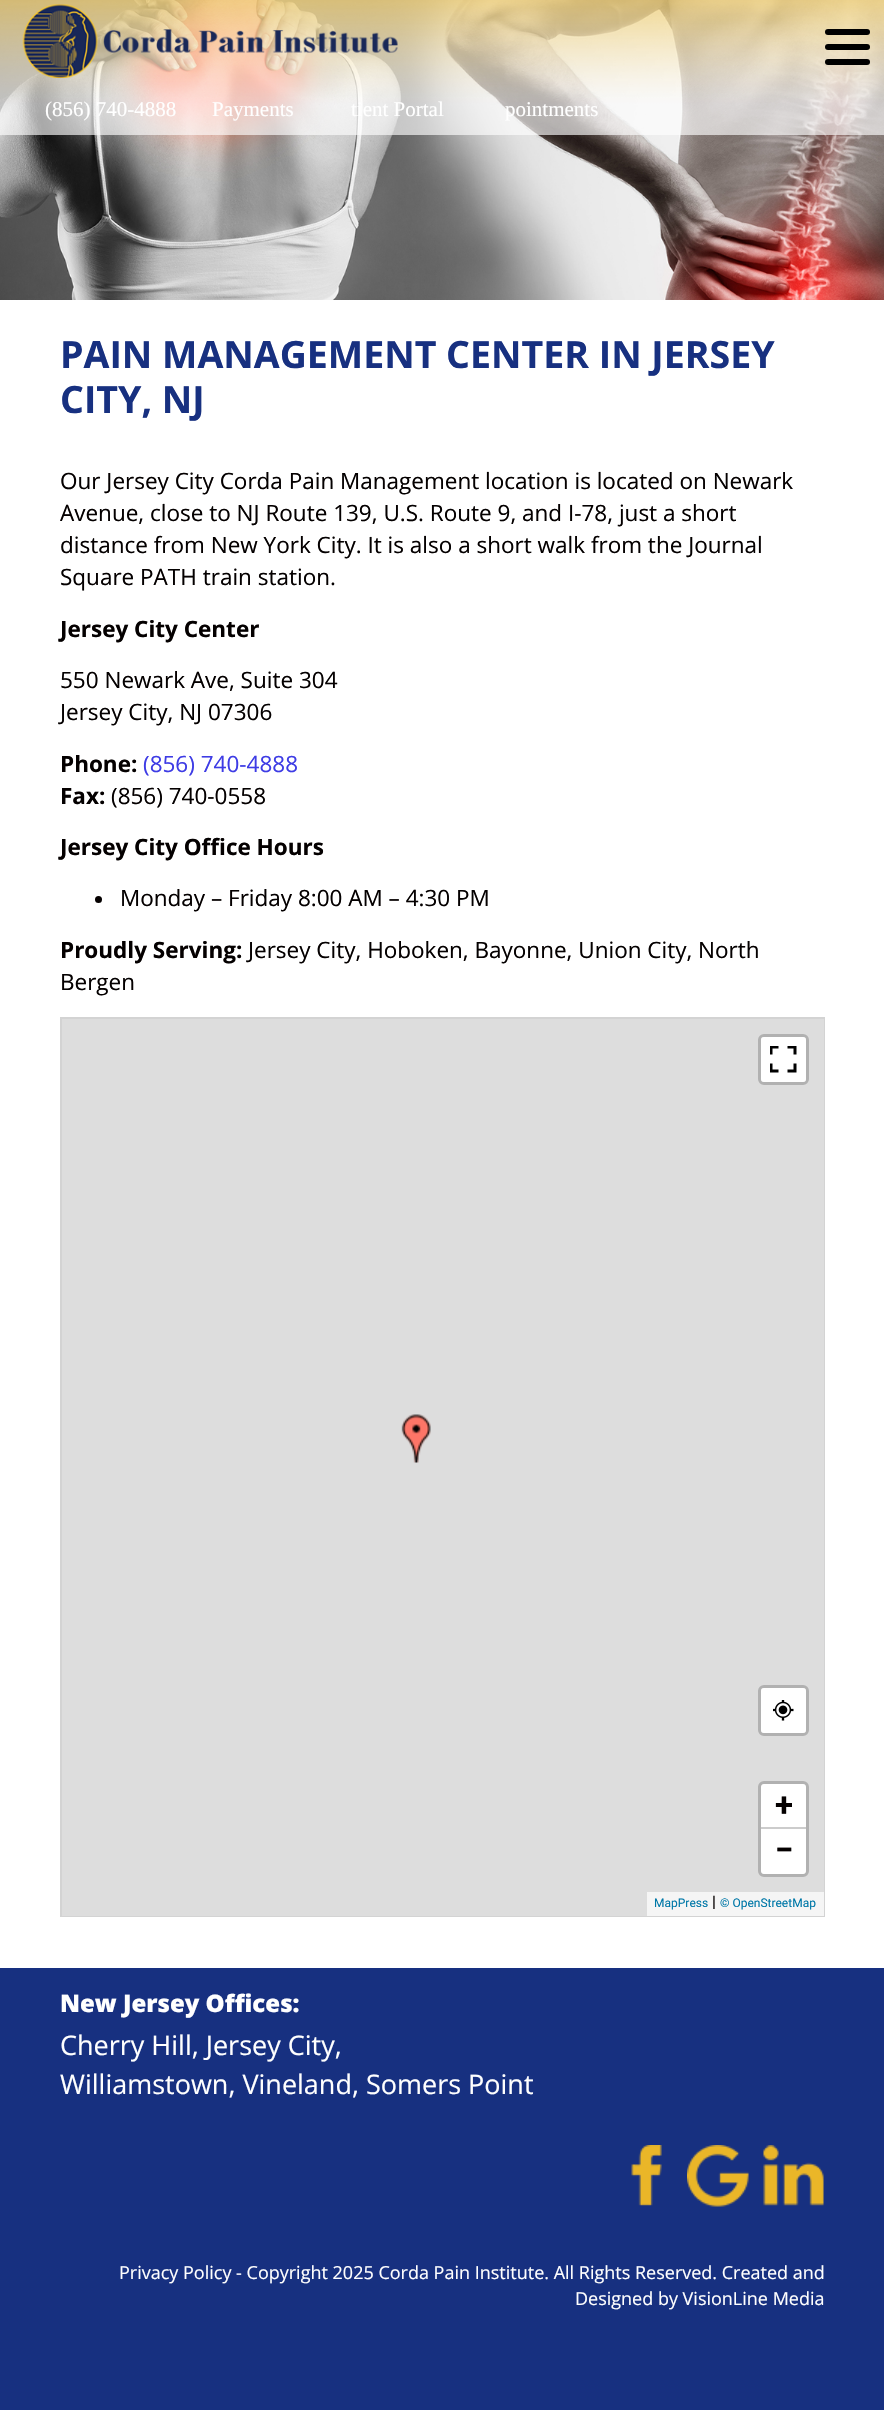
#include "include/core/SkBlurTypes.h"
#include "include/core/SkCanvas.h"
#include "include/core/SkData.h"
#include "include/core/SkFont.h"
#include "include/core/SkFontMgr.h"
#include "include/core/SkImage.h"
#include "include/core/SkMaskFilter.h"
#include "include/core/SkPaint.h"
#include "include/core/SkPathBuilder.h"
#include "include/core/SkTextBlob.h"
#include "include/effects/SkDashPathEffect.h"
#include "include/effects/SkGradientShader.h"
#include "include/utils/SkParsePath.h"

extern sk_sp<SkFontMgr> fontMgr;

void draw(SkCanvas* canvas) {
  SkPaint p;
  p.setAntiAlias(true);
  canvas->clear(SkColorSetRGB(23, 48, 128));
  canvas->drawImageRect(SkImages::DeferredFromEncodedData(SkData::MakeFromFileName("images/3.png")), SkRect::MakeLTRB(0, 0, 884, 300), SkSamplingOptions());
  canvas->drawImageRect(SkImages::DeferredFromEncodedData(SkData::MakeFromFileName("images/1.png")), SkRect::MakeLTRB(0, 0, 884, 135), SkSamplingOptions());
  p.setColor(SK_ColorBLACK);
  canvas->drawRoundRect(SkRect::MakeLTRB(825, 44, 870, 50), 3, 3, p);
  canvas->drawRoundRect(SkRect::MakeLTRB(825, 29, 870, 35), 3, 3, p);
  canvas->drawRoundRect(SkRect::MakeLTRB(825, 59, 870, 65), 3, 3, p);
  canvas->drawImageRect(SkImages::DeferredFromEncodedData(SkData::MakeFromFileName("images/2.png")), SkRect::MakeLTRB(22, 4, 398, 78), SkSamplingOptions());
  p.setColor(SK_ColorWHITE);
  canvas->drawRect(SkRect::MakeLTRB(0, 300, 884, 1968), p);
  p.setColor(SkColorSetRGB(4, 0, 0));
  canvas->drawCircle(98.5f, 899.5f, 3.5f, p);
  p.setStyle(SkPaint::kStroke_Style);
  p.setStrokeWidth(2);
  p.setColor(SkColorSetRGB(211, 211, 211));
  canvas->drawRect(SkRect::MakeLTRB(61, 1018, 824, 1916), p);
  p.setStyle(SkPaint::kFill_Style);
  p.setColor(SkColorSetRGB(221, 221, 221));
  canvas->drawRect(SkRect::MakeLTRB(62, 1019, 824, 1916), p);
  p.setStyle(SkPaint::kStroke_Style);
  p.setStrokeWidth(3);
  p.setColor(SkColorSetRGB(177, 177, 177));
  canvas->drawRoundRect(SkRect::MakeLTRB(759.5f, 1035.5f, 807.5f, 1083.5f), 4.5f, 4.5f, p);
  p.setStyle(SkPaint::kFill_Style);
  p.setColor(SK_ColorWHITE);
  canvas->drawRoundRect(SkRect::MakeLTRB(761, 1037, 806, 1082), 3, 3, p);
  canvas->drawImageRect(SkImages::DeferredFromEncodedData(SkData::MakeFromFileName("images/4.png")), SkRect::MakeLTRB(770, 1046, 797, 1073), SkSamplingOptions());
  p.setStyle(SkPaint::kStroke_Style);
  p.setColor(SkColorSetRGB(177, 177, 177));
  canvas->drawRoundRect(SkRect::MakeLTRB(759.5f, 1686.5f, 807.5f, 1734.5f), 4.5f, 4.5f, p);
  p.setStyle(SkPaint::kFill_Style);
  p.setColor(SK_ColorWHITE);
  canvas->drawRoundRect(SkRect::MakeLTRB(761, 1688, 806, 1733), 3, 3, p);
  canvas->drawImageRect(SkImages::DeferredFromEncodedData(SkData::MakeFromFileName("images/5.png")), SkRect::MakeLTRB(773, 1700, 794, 1721), SkSamplingOptions());
  canvas->drawImageRect(SkImages::DeferredFromEncodedData(SkData::MakeFromFileName("images/6.png")), SkRect::MakeLTRB(401, 1414, 431, 1463), SkSamplingOptions());
  p.setStyle(SkPaint::kStroke_Style);
  p.setColor(SkColorSetRGB(177, 177, 177));
  canvas->drawRoundRect(SkRect::MakeLTRB(759.5f, 1782.5f, 807.5f, 1875.5f), 4.5f, 4.5f, p);
  p.setStyle(SkPaint::kFill_Style);
  p.setColor(SK_ColorWHITE);
  canvas->drawPath(SkPathBuilder().moveTo(764, 1784).lineTo(803, 1784).cubicTo(804.5f, 1784, 806, 1785.5f, 806, 1787).lineTo(806, 1829).lineTo(761, 1829).lineTo(761, 1787).cubicTo(761, 1785.5f, 762.5f, 1784, 764, 1784).close().detach(), p);
  p.setColor(SkColorSetRGB(204, 204, 204));
  canvas->drawRect(SkRect::MakeLTRB(761, 1827, 806, 1829), p);
  p.setColor(SK_ColorWHITE);
  canvas->drawPath(SkPathBuilder().moveTo(761, 1829).lineTo(806, 1829).lineTo(806, 1871).cubicTo(806, 1872.5f, 804.5f, 1874, 803, 1874).lineTo(764, 1874).cubicTo(762.5f, 1874, 761, 1872.5f, 761, 1871).close().detach(), p);
  p.setColor(SkColorSetRGB(245, 245, 245));
  canvas->drawRect(SkRect::MakeLTRB(647, 1892, 824, 1916), p);
  canvas->drawImageRect(SkImages::DeferredFromEncodedData(SkData::MakeFromFileName("images/7.png")), SkRect::MakeLTRB(631, 2145, 662, 2206), SkSamplingOptions());
  canvas->drawImageRect(SkImages::DeferredFromEncodedData(SkData::MakeFromFileName("images/8.png")), SkRect::MakeLTRB(687, 2145, 749, 2207), SkSamplingOptions());
  canvas->drawImageRect(SkImages::DeferredFromEncodedData(SkData::MakeFromFileName("images/9.png")), SkRect::MakeLTRB(763, 2145, 824, 2206), SkSamplingOptions());
  SkFont font1(fontMgr->matchFamilyStyle("Liberation Serif", SkFontStyle::Normal()), 21);
  font1.setSubpixel(true);
  p.setColor(SK_ColorWHITE);
  canvas->drawString("(856) 740-4888", 45, 116, font1, p);
  canvas->drawString("Payments", 212, 116, font1, p);
  canvas->drawString("tient Portal", 351, 116, font1, p);
  canvas->drawString("pointments", 505, 116, font1, p);
  SkFont font2(fontMgr->matchFamilyStyle("Open Sans", SkFontStyle::Bold()), 37.5f);
  font2.setSubpixel(true);
  p.setColor(SkColorSetRGB(23, 48, 128));
  canvas->drawString("PAIN MANAGEMENT CENTER IN JERSEY", 60, 368, font2, p);
  canvas->drawString("CITY, NJ", 60, 413, font2, p);
  SkFont font3(fontMgr->matchFamilyStyle("Open Sans", SkFontStyle::Normal()), 22.5f);
  font3.setSubpixel(true);
  p.setColor(SkColorSetRGB(4, 0, 0));
  canvas->drawString("Our Jersey City Corda Pain Management location is located on Newark", 60, 489, font3, p);
  canvas->drawString("Avenue, close to NJ Route 139, U.S. Route 9, and I-78, just a short", 60, 521, font3, p);
  canvas->drawString("distance from New York City. It is also a short walk from the Journal", 60, 553, font3, p);
  canvas->drawString("Square PATH train station.", 60, 585, font3, p);
  SkFont font4(fontMgr->matchFamilyStyle("Open Sans", SkFontStyle::Bold()), 22.5f);
  font4.setSubpixel(true);
  canvas->drawString("Jersey City Center", 60, 637, font4, p);
  canvas->drawString("550 Newark Ave, Suite 304", 60, 688, font3, p);
  canvas->drawString("Jersey City, NJ 07306", 60, 720, font3, p);
  canvas->drawString("Phone:", 60, 772, font4, p);
  p.setColor(SkColorSetRGB(62, 60, 229));
  canvas->drawString("(856) 740-4888", 143, 772, font3, p);
  p.setColor(SkColorSetRGB(4, 0, 0));
  canvas->drawString("Fax:", 60, 804, font4, p);
  canvas->drawString("(856) 740-0558", 111, 804, font3, p);
  canvas->drawString("Jersey City Office Hours", 60, 855, font4, p);
  canvas->drawString("Monday – Friday 8:00 AM – 4:30 PM", 120, 906, font3, p);
  canvas->drawString("Proudly Serving:", 60, 958, font4, p);
  canvas->drawString("Jersey City, Hoboken, Bayonne, Union City, North", 248, 958, font3, p);
  canvas->drawString("Bergen", 60, 990, font3, p);
  SkFont font5(fontMgr->matchFamilyStyle("Roboto", SkFontStyle::Bold()), 33);
  font5.setSubpixel(true);
  canvas->drawString("+", 775, 1816, font5, p);
  canvas->drawString("−", 775, 1861, font5, p);
  SkFont font6(fontMgr->matchFamilyStyle("Roboto", SkFontStyle::Normal()), 12);
  font6.setSubpixel(true);
  p.setColor(SkColorSetRGB(0, 120, 168));
  canvas->drawString("MapPress", 654, 1907, font6, p);
  SkFont font7(fontMgr->matchFamilyStyle("Roboto", SkFontStyle::Normal()), 16);
  font7.setSubpixel(true);
  p.setColor(SkColorSetRGB(4, 0, 0));
  canvas->drawString("|", 712, 1907, font7, p);
  p.setColor(SkColorSetRGB(0, 120, 168));
  canvas->drawString("© OpenStreetMap", 720, 1907, font6, p);
  SkFont font8(fontMgr->matchFamilyStyle("Open Sans", SkFontStyle(800, SkFontStyle::kNormal_Width, SkFontStyle::kUpright_Slant)), 24);
  font8.setSubpixel(true);
  p.setColor(SK_ColorWHITE);
  canvas->drawString("New Jersey Offices:", 60, 2012, font8, p);
  SkFont font9(fontMgr->matchFamilyStyle("Open Sans", SkFontStyle::Normal()), 27);
  font9.setSubpixel(true);
  canvas->drawString("Cherry Hill, Jersey City,", 60, 2055, font9, p);
  canvas->drawString("Williamstown, Vineland, Somers Point", 60, 2094, font9, p);
  SkFont font10(fontMgr->matchFamilyStyle("Open Sans", SkFontStyle::Normal()), 18);
  font10.setSubpixel(true);
  canvas->drawString("Privacy Policy - Copyright 2025 Corda Pain Institute. All Rights Reserved. Created and", 119, 2279, font10, p);
  canvas->drawString("Designed by VisionLine Media", 575, 2305, font10, p);
}
